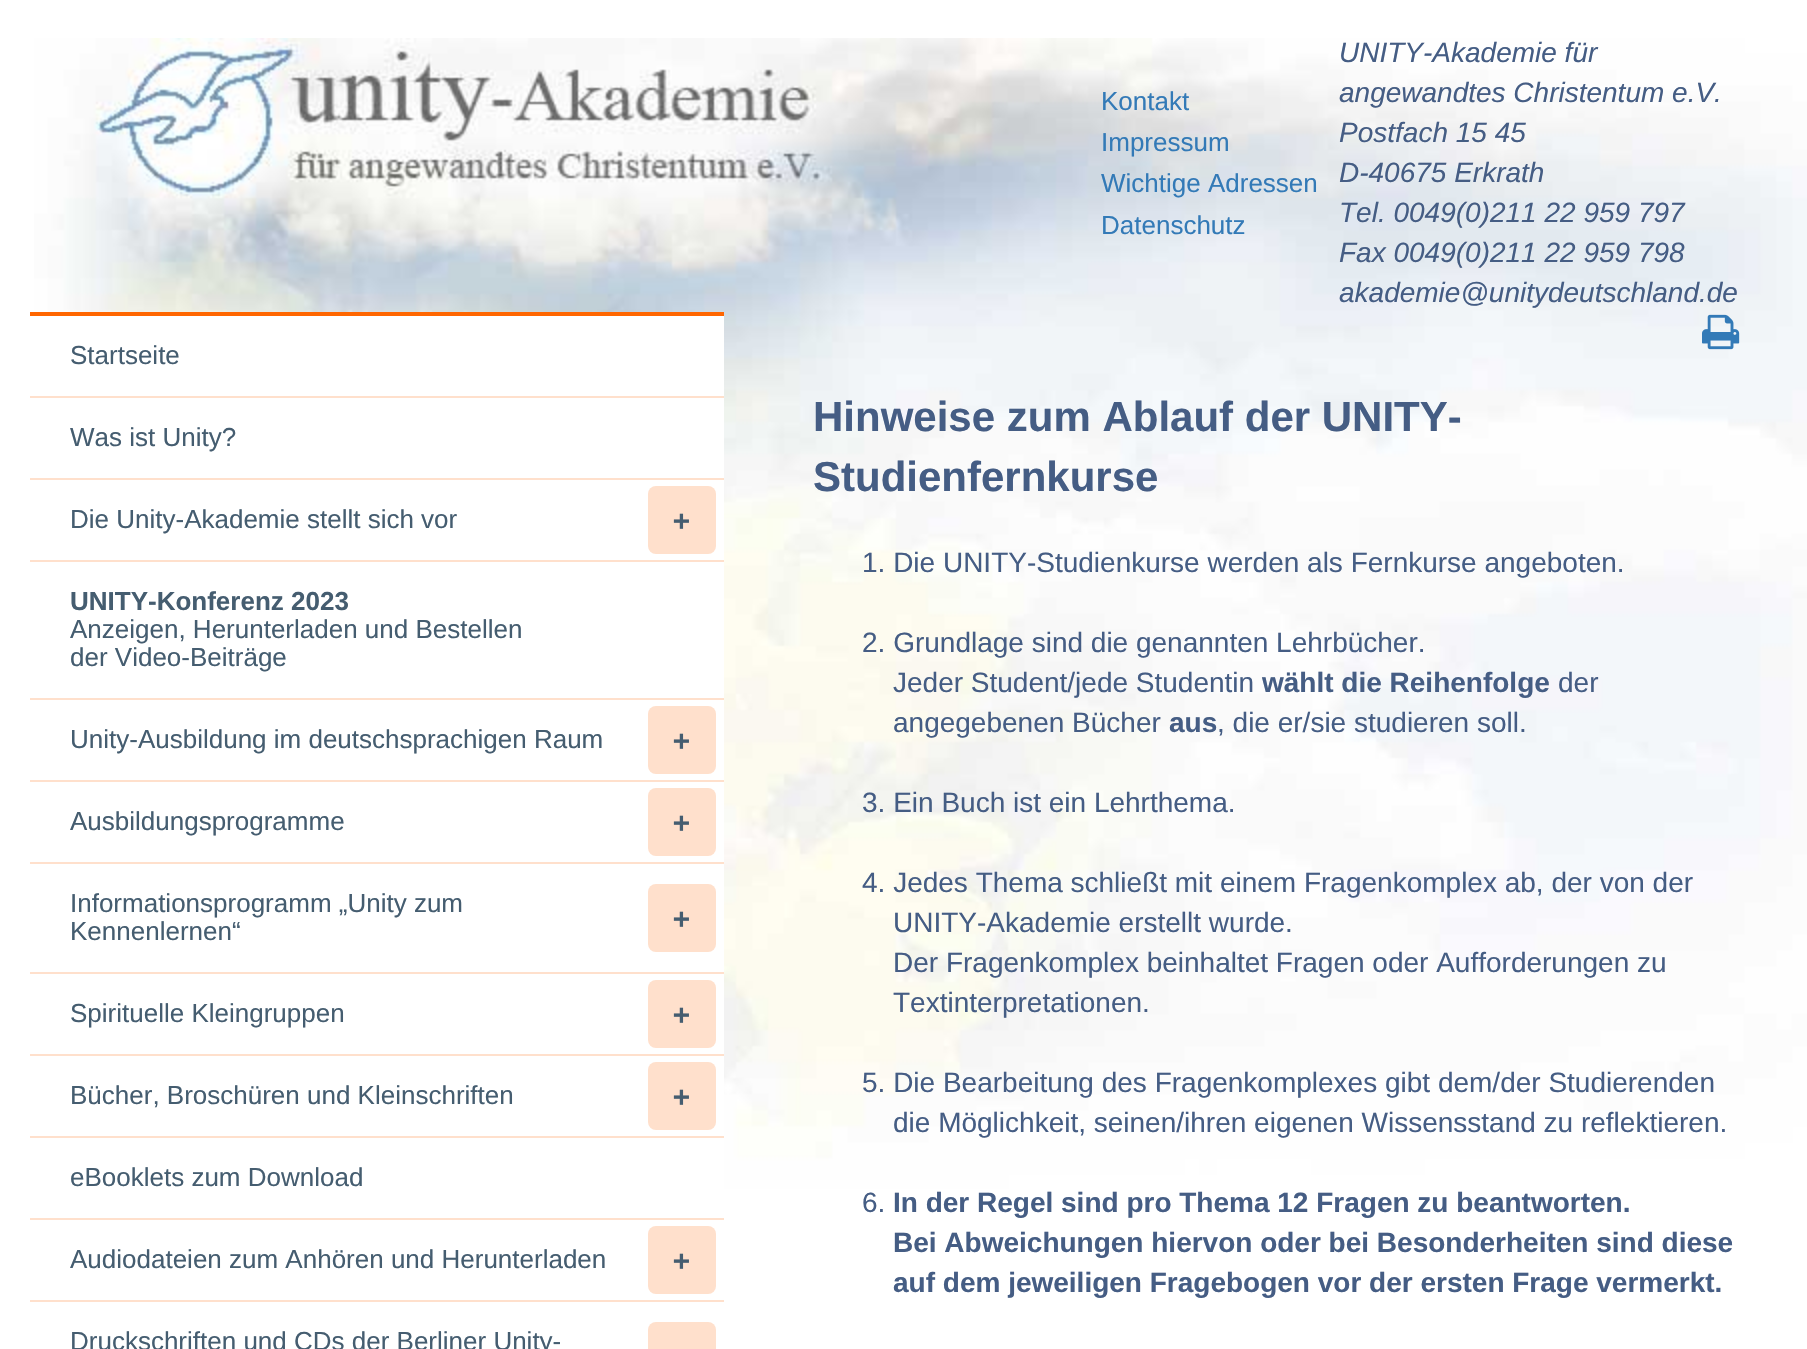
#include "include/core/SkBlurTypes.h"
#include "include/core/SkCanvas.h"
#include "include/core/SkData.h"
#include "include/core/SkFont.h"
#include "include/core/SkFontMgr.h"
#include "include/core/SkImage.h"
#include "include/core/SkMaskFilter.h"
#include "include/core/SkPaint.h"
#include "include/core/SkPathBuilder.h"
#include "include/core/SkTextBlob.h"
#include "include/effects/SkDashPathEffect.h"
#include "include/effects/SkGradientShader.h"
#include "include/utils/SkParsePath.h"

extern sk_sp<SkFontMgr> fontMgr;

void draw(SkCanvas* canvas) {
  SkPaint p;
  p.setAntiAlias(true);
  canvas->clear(SK_ColorWHITE);
  canvas->drawImageRect(SkImages::DeferredFromEncodedData(SkData::MakeFromFileName("images/1.png")), SkRect::MakeLTRB(34, 38, 1807, 1189), SkSamplingOptions());
  canvas->drawImageRect(SkImages::DeferredFromEncodedData(SkData::MakeFromFileName("images/2.png")), SkRect::MakeLTRB(1702, 314, 1740, 350), SkSamplingOptions());
  p.setColor(SK_ColorWHITE);
  canvas->drawRect(SkRect::MakeLTRB(34, 316, 724, 1189), p);
  p.setColor(SkColorSetRGB(255, 102, 0));
  canvas->drawRect(SkRect::MakeLTRB(30, 312, 724, 316), p);
  p.setColor(SkColorSetRGB(255, 224, 204));
  canvas->drawRect(SkRect::MakeLTRB(30, 396, 724, 398), p);
  canvas->drawRect(SkRect::MakeLTRB(30, 478, 724, 480), p);
  canvas->drawRoundRect(SkRect::MakeLTRB(648, 486, 716, 554), 8, 8, p);
  canvas->drawRect(SkRect::MakeLTRB(30, 560, 724, 562), p);
  canvas->drawRect(SkRect::MakeLTRB(30, 698, 724, 700), p);
  canvas->drawRoundRect(SkRect::MakeLTRB(648, 706, 716, 774), 8, 8, p);
  canvas->drawRect(SkRect::MakeLTRB(30, 780, 724, 782), p);
  canvas->drawRoundRect(SkRect::MakeLTRB(648, 788, 716, 856), 8, 8, p);
  canvas->drawRect(SkRect::MakeLTRB(30, 862, 724, 864), p);
  canvas->drawRoundRect(SkRect::MakeLTRB(648, 884, 716, 952), 8, 8, p);
  canvas->drawRect(SkRect::MakeLTRB(30, 972, 724, 974), p);
  canvas->drawRoundRect(SkRect::MakeLTRB(648, 980, 716, 1048), 8, 8, p);
  canvas->drawRect(SkRect::MakeLTRB(30, 1054, 724, 1056), p);
  canvas->drawRoundRect(SkRect::MakeLTRB(648, 1062, 716, 1130), 8, 8, p);
  canvas->drawRect(SkRect::MakeLTRB(30, 1136, 724, 1138), p);
  canvas->drawRect(SkRect::MakeLTRB(30, 1218, 724, 1220), p);
  canvas->drawRoundRect(SkRect::MakeLTRB(648, 1226, 716, 1294), 8, 8, p);
  canvas->drawRect(SkRect::MakeLTRB(30, 1300, 724, 1302), p);
  canvas->drawRoundRect(SkRect::MakeLTRB(648, 1322, 716, 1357), 8, 8, p);
  SkFont font1(fontMgr->matchFamilyStyle("Liberation Sans", SkFontStyle::Normal()), 26);
  font1.setSubpixel(true);
  p.setColor(SkColorSetRGB(51, 122, 183));
  canvas->drawString("Kontakt", 1101, 110, font1, p);
  canvas->drawString("Impressum", 1101, 151, font1, p);
  canvas->drawString("Wichtige Adressen", 1101, 192, font1, p);
  canvas->drawString("Datenschutz", 1101, 234, font1, p);
  SkFont font2(fontMgr->matchFamilyStyle("Liberation Sans", SkFontStyle::Italic()), 28);
  font2.setSubpixel(true);
  p.setColor(SkColorSetRGB(69, 93, 132));
  canvas->drawString("UNITY-Akademie für", 1339, 62, font2, p);
  canvas->drawString("angewandtes Christentum e.V.", 1339, 102, font2, p);
  canvas->drawString("Postfach 15 45", 1339, 142, font2, p);
  canvas->drawString("D-40675 Erkrath", 1339, 182, font2, p);
  canvas->drawString("Tel. 0049(0)211 22 959 797", 1339, 222, font2, p);
  canvas->drawString("Fax 0049(0)211 22 959 798", 1339, 262, font2, p);
  canvas->drawString("akademie@unitydeutschland.de", 1339, 302, font2, p);
  p.setColor(SkColorSetRGB(69, 93, 112));
  canvas->drawString("Startseite", 70, 364, font1, p);
  canvas->drawString("Was ist Unity?", 70, 446, font1, p);
  canvas->drawString("Die Unity-Akademie stellt sich vor", 70, 528, font1, p);
  SkFont font3(fontMgr->matchFamilyStyle("DejaVu Sans Mono", SkFontStyle::Bold()), 28);
  font3.setSubpixel(true);
  canvas->drawString("+", 673, 530, font3, p);
  SkFont font4(fontMgr->matchFamilyStyle("Liberation Sans", SkFontStyle::Bold()), 26);
  font4.setSubpixel(true);
  canvas->drawString("UNITY-Konferenz 2023", 70, 610, font4, p);
  canvas->drawString("Anzeigen, Herunterladen und Bestellen", 70, 638, font1, p);
  canvas->drawString("der Video-Beiträge", 70, 666, font1, p);
  canvas->drawString("Unity-Ausbildung im deutschsprachigen Raum", 70, 748, font1, p);
  canvas->drawString("+", 673, 750, font3, p);
  canvas->drawString("Ausbildungsprogramme", 70, 830, font1, p);
  canvas->drawString("+", 673, 832, font3, p);
  canvas->drawString("Informationsprogramm „Unity zum", 70, 912, font1, p);
  canvas->drawString("+", 673, 928, font3, p);
  canvas->drawString("Kennenlernen“", 70, 940, font1, p);
  canvas->drawString("Spirituelle Kleingruppen", 70, 1022, font1, p);
  canvas->drawString("+", 673, 1024, font3, p);
  canvas->drawString("Bücher, Broschüren und Kleinschriften", 70, 1104, font1, p);
  canvas->drawString("+", 673, 1106, font3, p);
  canvas->drawString("eBooklets zum Download", 70, 1186, font1, p);
  canvas->drawString("Audiodateien zum Anhören und Herunterladen", 70, 1268, font1, p);
  canvas->drawString("+", 673, 1270, font3, p);
  canvas->drawString("Druckschriften und CDs der Berliner Unity-", 70, 1350, font1, p);
  SkFont font5(fontMgr->matchFamilyStyle("Liberation Sans", SkFontStyle::Bold()), 42);
  font5.setSubpixel(true);
  p.setColor(SkColorSetRGB(69, 93, 132));
  canvas->drawString("Hinweise zum Ablauf der UNITY-", 813, 431, font5, p);
  canvas->drawString("Studienfernkurse", 813, 491, font5, p);
  SkFont font6(fontMgr->matchFamilyStyle("Liberation Sans", SkFontStyle::Normal()), 28);
  font6.setSubpixel(true);
  canvas->drawString("1. Die UNITY-Studienkurse werden als Fernkurse angeboten.", 862, 572, font6, p);
  canvas->drawString("2. Grundlage sind die genannten Lehrbücher.", 862, 652, font6, p);
  canvas->drawString("Jeder Student/jede Studentin", 893, 692, font6, p);
  SkFont font7(fontMgr->matchFamilyStyle("Liberation Sans", SkFontStyle::Bold()), 28);
  font7.setSubpixel(true);
  canvas->drawString("wählt die Reihenfolge", 1262, 692, font7, p);
  canvas->drawString("der", 1558, 692, font6, p);
  canvas->drawString("angegebenen Bücher", 893, 732, font6, p);
  canvas->drawString("aus", 1169, 732, font7, p);
  canvas->drawString(", die er/sie studieren soll.", 1217, 732, font6, p);
  canvas->drawString("3. Ein Buch ist ein Lehrthema.", 862, 812, font6, p);
  canvas->drawString("4. Jedes Thema schließt mit einem Fragenkomplex ab, der von der", 862, 892, font6, p);
  canvas->drawString("UNITY-Akademie erstellt wurde.", 893, 932, font6, p);
  canvas->drawString("Der Fragenkomplex beinhaltet Fragen oder Aufforderungen zu", 893, 972, font6, p);
  canvas->drawString("Textinterpretationen.", 893, 1012, font6, p);
  canvas->drawString("5. Die Bearbeitung des Fragenkomplexes gibt dem/der Studierenden", 862, 1092, font6, p);
  canvas->drawString("die Möglichkeit, seinen/ihren eigenen Wissensstand zu reflektieren.", 893, 1132, font6, p);
  canvas->drawString("6.", 862, 1212, font6, p);
  canvas->drawString("In der Regel sind pro Thema 12 Fragen zu beantworten.", 893, 1212, font7, p);
  canvas->drawString("Bei Abweichungen hiervon oder bei Besonderheiten sind diese", 893, 1252, font7, p);
  canvas->drawString("auf dem jeweiligen Fragebogen vor der ersten Frage vermerkt.", 893, 1292, font7, p);
}
